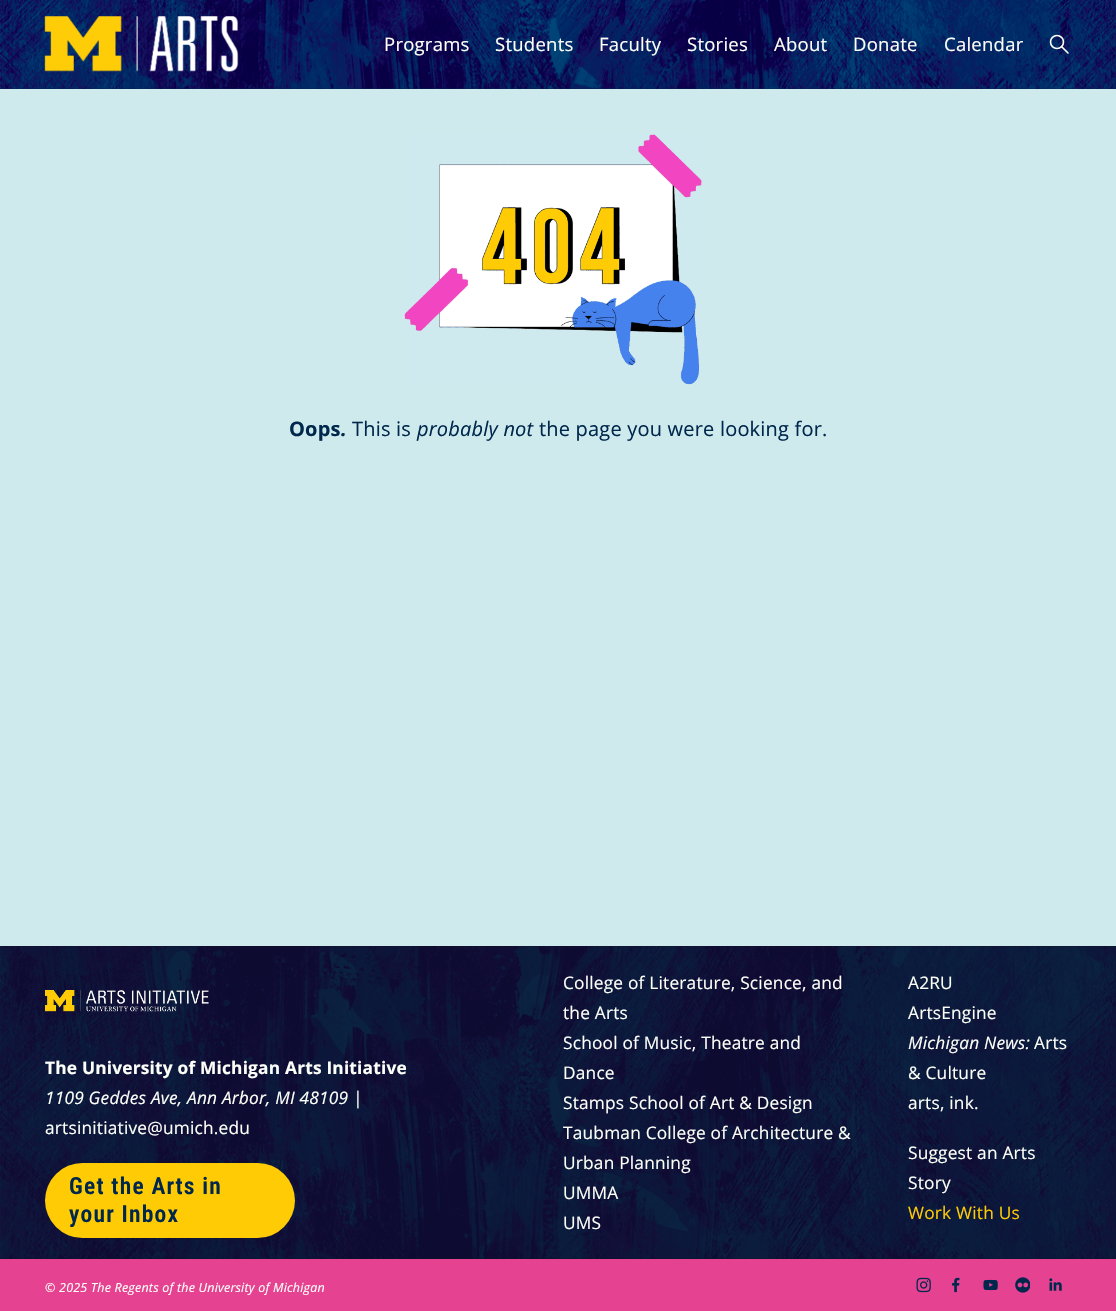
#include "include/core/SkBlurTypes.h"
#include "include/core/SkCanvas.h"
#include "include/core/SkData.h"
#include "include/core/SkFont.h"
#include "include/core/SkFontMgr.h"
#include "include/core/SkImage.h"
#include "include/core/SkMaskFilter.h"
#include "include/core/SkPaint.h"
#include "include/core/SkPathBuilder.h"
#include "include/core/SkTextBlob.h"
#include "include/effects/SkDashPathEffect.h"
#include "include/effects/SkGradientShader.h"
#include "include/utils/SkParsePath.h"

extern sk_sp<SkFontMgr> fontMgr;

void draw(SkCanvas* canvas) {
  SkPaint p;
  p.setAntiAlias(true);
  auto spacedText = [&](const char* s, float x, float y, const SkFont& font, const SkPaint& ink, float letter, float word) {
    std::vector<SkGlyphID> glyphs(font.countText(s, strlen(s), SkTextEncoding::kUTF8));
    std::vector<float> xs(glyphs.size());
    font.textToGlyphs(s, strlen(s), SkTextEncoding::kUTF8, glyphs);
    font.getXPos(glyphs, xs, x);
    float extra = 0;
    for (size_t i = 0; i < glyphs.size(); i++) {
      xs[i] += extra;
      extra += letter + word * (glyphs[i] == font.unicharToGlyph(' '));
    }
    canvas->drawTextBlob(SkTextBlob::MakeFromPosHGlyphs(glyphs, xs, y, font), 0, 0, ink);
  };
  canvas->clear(SkColorSetRGB(206, 234, 237));
  p.setColor(SkColorSetRGB(0, 39, 76));
  canvas->drawRect(SkRect::MakeLTRB(0, 0, 1116, 89), p);
  canvas->drawImageRect(SkImages::DeferredFromEncodedData(SkData::MakeFromFileName("images/1.png")), SkRect::MakeLTRB(0, 0, 1116, 89), SkSamplingOptions());
  canvas->drawImageRect(SkImages::DeferredFromEncodedData(SkData::MakeFromFileName("images/2.png")), SkRect::MakeLTRB(44, 16, 239, 72), SkSamplingOptions());
  p.setStyle(SkPaint::kStroke_Style);
  p.setStrokeWidth(1.6f);
  p.setStrokeCap(SkPaint::kRound_Cap);
  p.setStrokeJoin(SkPaint::kRound_Join);
  p.setColor(SkColorSetRGB(253, 255, 249));
  canvas->drawPath(SkPathBuilder().moveTo(1061.5f, 46.5f).lineTo(1068, 53).detach(), p);
  p.setStrokeCap(SkPaint::kButt_Cap);
  p.setStrokeJoin(SkPaint::kMiter_Join);
  canvas->drawCircle(1057, 42, 6.5f, p);
  canvas->drawImageRect(SkImages::DeferredFromEncodedData(SkData::MakeFromFileName("images/3.png")), SkRect::MakeLTRB(404, 134, 702, 385), SkSamplingOptions());
  p.setStyle(SkPaint::kFill_Style);
  p.setColor(SkColorSetRGB(16, 17, 38));
  canvas->drawRect(SkRect::MakeLTRB(0, 946, 1116, 1259), p);
  canvas->drawImageRect(SkImages::DeferredFromEncodedData(SkData::MakeFromFileName("images/4.png")), SkRect::MakeLTRB(0, 946, 1116, 1259), SkSamplingOptions());
  canvas->drawImageRect(SkImages::DeferredFromEncodedData(SkData::MakeFromFileName("images/5.png")), SkRect::MakeLTRB(45, 990, 209, 1012), SkSamplingOptions());
  p.setColor(SkColorSetRGB(255, 203, 5));
  canvas->drawRoundRect(SkRect::MakeLTRB(45, 1163, 295, 1238), 37.5f, 37.5f, p);
  p.setColor(SkColorSetRGB(229, 66, 145));
  canvas->drawRect(SkRect::MakeLTRB(0, 1259, 1116, 1311), p);
  canvas->drawImageRect(SkImages::DeferredFromEncodedData(SkData::MakeFromFileName("images/6.png")), SkRect::MakeLTRB(916, 1277, 931, 1293), SkSamplingOptions());
  canvas->drawImageRect(SkImages::DeferredFromEncodedData(SkData::MakeFromFileName("images/7.png")), SkRect::MakeLTRB(952, 1277, 960, 1293), SkSamplingOptions());
  canvas->drawImageRect(SkImages::DeferredFromEncodedData(SkData::MakeFromFileName("images/8.png")), SkRect::MakeLTRB(983, 1279, 998, 1291), SkSamplingOptions());
  canvas->drawImageRect(SkImages::DeferredFromEncodedData(SkData::MakeFromFileName("images/9.png")), SkRect::MakeLTRB(1015, 1277, 1030, 1293), SkSamplingOptions());
  canvas->drawImageRect(SkImages::DeferredFromEncodedData(SkData::MakeFromFileName("images/10.png")), SkRect::MakeLTRB(1049, 1278, 1062, 1291), SkSamplingOptions());
  SkFont font1(fontMgr->matchFamilyStyle("Open Sans", SkFontStyle::Normal()), 18.5f);
  font1.setSubpixel(true);
  p.setColor(SkColorSetRGB(253, 255, 249));
  spacedText("Programs", 384, 51, font1, p, 0.25f, 0);
  spacedText("Students", 495, 51, font1, p, 0.25f, 0);
  spacedText("Faculty", 599, 51, font1, p, 0.25f, 0);
  spacedText("Stories", 687, 51, font1, p, 0.25f, 0);
  spacedText("About", 774, 51, font1, p, 0.25f, 0);
  spacedText("Donate", 853, 51, font1, p, 0.25f, 0);
  spacedText("Calendar", 944, 51, font1, p, 0.25f, 0);
  SkFont font2(fontMgr->matchFamilyStyle("Open Sans", SkFontStyle::Bold()), 20);
  font2.setSubpixel(true);
  p.setColor(SkColorSetRGB(0, 39, 76));
  spacedText("Oops", 289, 436, font2, p, 0.2f, 0);
  SkFont font3(fontMgr->matchFamilyStyle("Open Sans", SkFontStyle::BoldItalic()), 20);
  font3.setSubpixel(true);
  spacedText(".", 341, 436, font3, p, 0.2f, 0);
  SkFont font4(fontMgr->matchFamilyStyle("Open Sans", SkFontStyle::Normal()), 20);
  font4.setSubpixel(true);
  spacedText("This is", 352, 436, font4, p, 0.2f, 0);
  SkFont font5(fontMgr->matchFamilyStyle("Open Sans", SkFontStyle::Italic()), 20);
  font5.setSubpixel(true);
  spacedText("probably not", 417, 436, font5, p, 0.2f, 0);
  spacedText("the page you were looking for.", 539, 436, font4, p, 0.2f, 0);
  SkFont font6(fontMgr->matchFamilyStyle("Open Sans", SkFontStyle::Normal()), 17.3f);
  font6.setSubpixel(true);
  p.setColor(SkColorSetRGB(253, 255, 249));
  spacedText("College of Literature, Science, and", 563, 989, font6, p, 0.2f, 0);
  spacedText("the Arts", 563, 1019, font6, p, 0.2f, 0);
  spacedText("School of Music, Theatre and", 563, 1049, font6, p, 0.2f, 0);
  spacedText("Dance", 563, 1079, font6, p, 0.2f, 0);
  spacedText("Stamps School of Art & Design", 563, 1109, font6, p, 0.2f, 0);
  spacedText("Taubman College of Architecture &", 563, 1139, font6, p, 0.2f, 0);
  spacedText("Urban Planning", 563, 1169, font6, p, 0.2f, 0);
  spacedText("UMMA", 563, 1199, font6, p, 0.2f, 0);
  spacedText("UMS", 563, 1229, font6, p, 0.2f, 0);
  spacedText("A2RU", 908, 989, font6, p, 0.2f, 0);
  spacedText("ArtsEngine", 908, 1019, font6, p, 0.2f, 0);
  SkFont font7(fontMgr->matchFamilyStyle("Open Sans", SkFontStyle::Italic()), 17.3f);
  font7.setSubpixel(true);
  spacedText("Michigan News:", 908, 1049, font7, p, 0.2f, 0);
  spacedText("Arts", 1034, 1049, font6, p, 0.2f, 0);
  spacedText("& Culture", 908, 1079, font6, p, 0.2f, 0);
  spacedText("arts, ink.", 908, 1109, font6, p, 0.2f, 0);
  spacedText("Suggest an Arts", 908, 1159, font6, p, 0.2f, 0);
  spacedText("Story", 908, 1189, font6, p, 0.2f, 0);
  p.setColor(SkColorSetRGB(255, 203, 5));
  spacedText("Work With Us", 908, 1219, font6, p, 0.2f, 0);
  SkFont font8(fontMgr->matchFamilyStyle("Open Sans", SkFontStyle::Bold()), 17.3f);
  font8.setSubpixel(true);
  p.setColor(SkColorSetRGB(253, 255, 249));
  spacedText("The University of Michigan Arts Initiative", 45, 1074, font8, p, 0.2f, 0);
  spacedText("1109 Geddes Ave, Ann Arbor, MI 48109 |", 45, 1104, font7, p, 0.2f, 0);
  spacedText("artsinitiative@umich.edu", 45, 1134, font6, p, 0.2f, 0);
  SkFont font9(fontMgr->matchFamilyStyle("Roboto Condensed", SkFontStyle(600, SkFontStyle::kNormal_Width, SkFontStyle::kUpright_Slant)), 23.5f);
  font9.setSubpixel(true);
  p.setColor(SkColorSetRGB(0, 39, 76));
  spacedText("Get the Arts in", 69, 1194, font9, p, 1.2f, 0);
  spacedText("your Inbox", 69, 1222, font9, p, 1.2f, 0);
  SkFont font10(fontMgr->matchFamilyStyle("Open Sans", SkFontStyle::Italic()), 12.5f);
  font10.setSubpixel(true);
  p.setColor(SkColorSetRGB(253, 255, 249));
  spacedText("© 2025 The Regents of the University of Michigan", 45, 1292, font10, p, 0.2f, 0);
}
